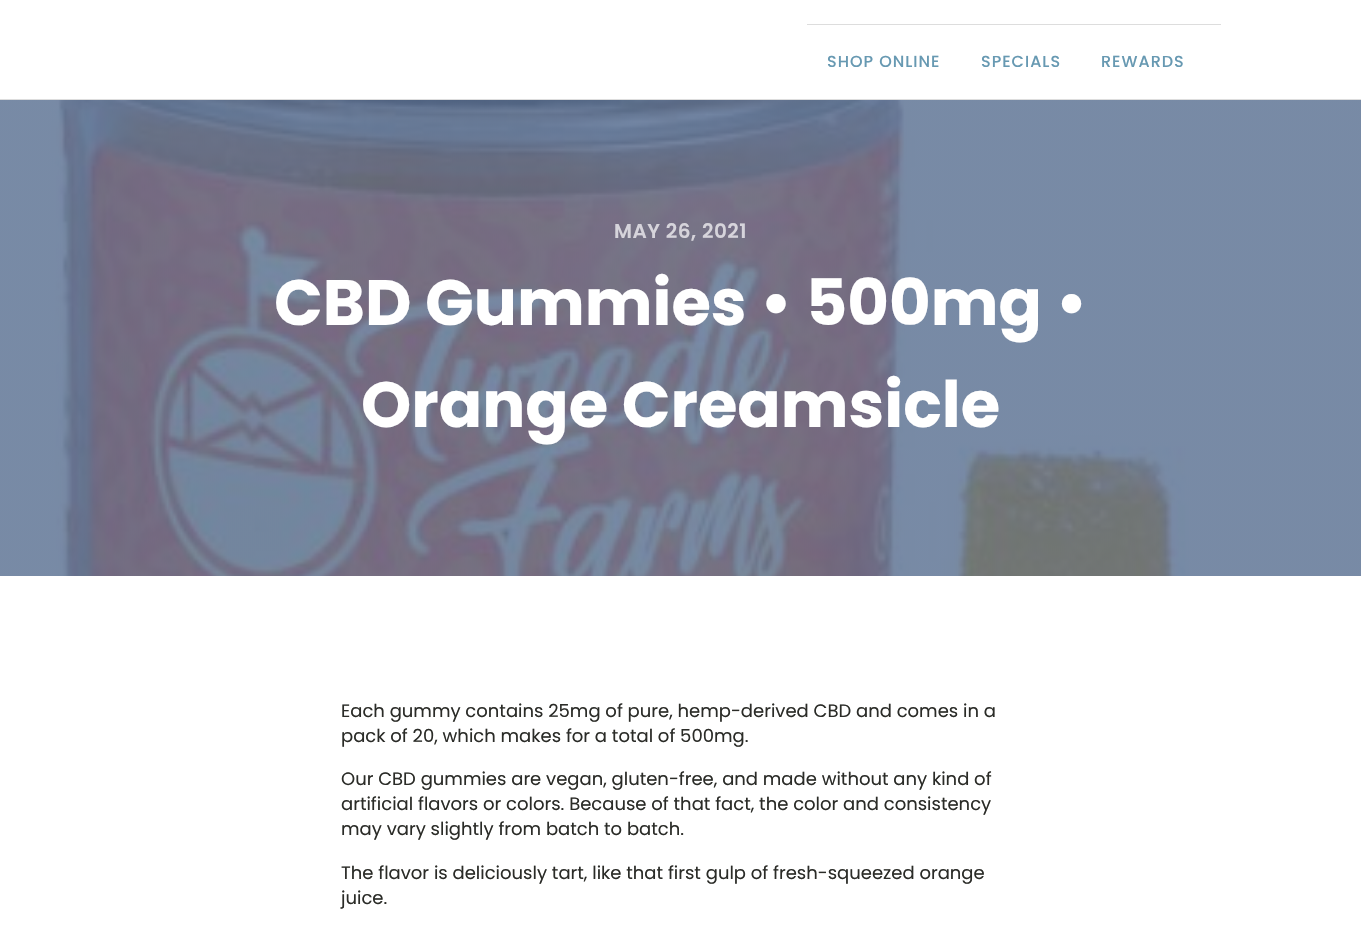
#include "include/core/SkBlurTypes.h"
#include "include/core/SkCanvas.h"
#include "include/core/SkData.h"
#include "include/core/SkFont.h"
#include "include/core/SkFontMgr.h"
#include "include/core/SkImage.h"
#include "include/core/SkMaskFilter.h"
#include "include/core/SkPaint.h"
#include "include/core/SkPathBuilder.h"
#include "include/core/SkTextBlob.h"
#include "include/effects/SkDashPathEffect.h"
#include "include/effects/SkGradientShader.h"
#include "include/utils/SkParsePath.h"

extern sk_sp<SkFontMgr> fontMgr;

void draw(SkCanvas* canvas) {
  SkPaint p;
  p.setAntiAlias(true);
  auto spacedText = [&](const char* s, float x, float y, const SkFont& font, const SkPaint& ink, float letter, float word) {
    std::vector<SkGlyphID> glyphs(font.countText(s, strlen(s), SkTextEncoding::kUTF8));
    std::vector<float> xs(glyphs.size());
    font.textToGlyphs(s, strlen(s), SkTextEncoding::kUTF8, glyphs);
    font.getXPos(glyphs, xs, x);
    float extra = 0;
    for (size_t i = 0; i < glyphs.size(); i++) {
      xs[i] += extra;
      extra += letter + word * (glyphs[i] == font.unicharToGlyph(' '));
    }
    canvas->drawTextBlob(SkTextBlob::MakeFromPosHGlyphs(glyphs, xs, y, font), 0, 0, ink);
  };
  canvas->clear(SK_ColorWHITE);
  p.setColor(SkColorSetRGB(221, 221, 221));
  canvas->drawRect(SkRect::MakeLTRB(0, 99, 1361, 100), p);
  canvas->drawRect(SkRect::MakeLTRB(807, 24, 1221, 25), p);
  canvas->drawImageRect(SkImages::DeferredFromEncodedData(SkData::MakeFromFileName("images/1.png")), SkRect::MakeLTRB(0, 100, 1361, 576), SkSamplingOptions());
  SkFont font1(fontMgr->matchFamilyStyle("Poppins", SkFontStyle(500, SkFontStyle::kNormal_Width, SkFontStyle::kUpright_Slant)), 16);
  font1.setSubpixel(true);
  p.setColor(SkColorSetRGB(103, 153, 178));
  spacedText("SHOP ONLINE", 827, 67, font1, p, 1, 0);
  spacedText("SPECIALS", 981, 67, font1, p, 1, 0);
  spacedText("REWARDS", 1101, 67, font1, p, 1, 0);
  SkFont font2(fontMgr->matchFamilyStyle("Poppins", SkFontStyle(600, SkFontStyle::kNormal_Width, SkFontStyle::kUpright_Slant)), 20);
  font2.setSubpixel(true);
  p.setColor(SkColorSetRGB(214, 212, 219));
  spacedText("MAY 26, 2021", 614, 238, font2, p, 0.5f, 0);
  SkFont font3(fontMgr->matchFamilyStyle("Poppins", SkFontStyle::Bold()), 64);
  font3.setSubpixel(true);
  p.setColor(SK_ColorWHITE);
  canvas->drawString("CBD Gummies • 500mg •", 274, 325, font3, p);
  canvas->drawString("Orange Creamsicle", 361, 427, font3, p);
  SkFont font4(fontMgr->matchFamilyStyle("Poppins", SkFontStyle::Normal()), 18);
  font4.setSubpixel(true);
  p.setColor(SkColorSetRGB(43, 44, 40));
  canvas->drawString("Each gummy contains 25mg of pure, hemp-derived CBD and comes in a", 341, 717, font4, p);
  canvas->drawString("pack of 20, which makes for a total of 500mg.", 341, 742, font4, p);
  canvas->drawString("Our CBD gummies are vegan, gluten-free, and made without any kind of", 341, 785, font4, p);
  canvas->drawString("artificial flavors or colors. Because of that fact, the color and consistency", 341, 810, font4, p);
  canvas->drawString("may vary slightly from batch to batch.", 341, 835, font4, p);
  canvas->drawString("The flavor is deliciously tart, like that first gulp of fresh-squeezed orange", 341, 879, font4, p);
  canvas->drawString("juice.", 341, 904, font4, p);
}
